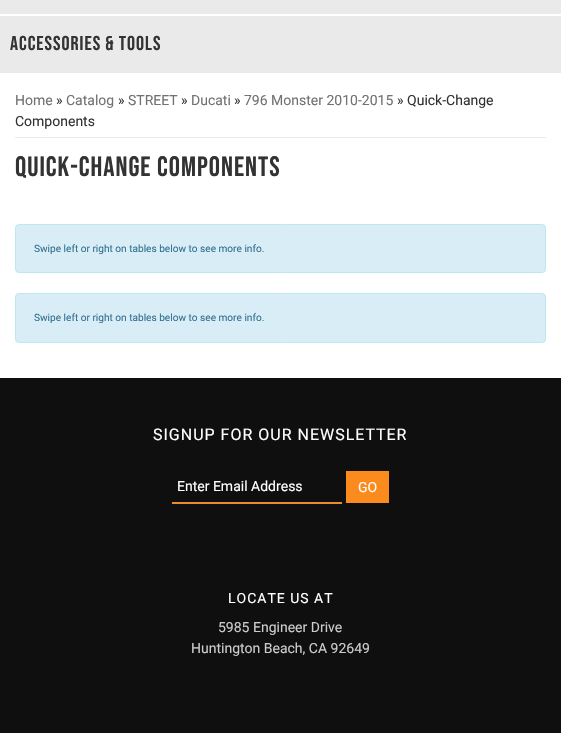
#include "include/core/SkBlurTypes.h"
#include "include/core/SkCanvas.h"
#include "include/core/SkData.h"
#include "include/core/SkFont.h"
#include "include/core/SkFontMgr.h"
#include "include/core/SkImage.h"
#include "include/core/SkMaskFilter.h"
#include "include/core/SkPaint.h"
#include "include/core/SkPathBuilder.h"
#include "include/core/SkTextBlob.h"
#include "include/effects/SkDashPathEffect.h"
#include "include/effects/SkGradientShader.h"
#include "include/utils/SkParsePath.h"

extern sk_sp<SkFontMgr> fontMgr;

void draw(SkCanvas* canvas) {
  SkPaint p;
  p.setAntiAlias(true);
  auto spacedText = [&](const char* s, float x, float y, const SkFont& font, const SkPaint& ink, float letter, float word) {
    std::vector<SkGlyphID> glyphs(font.countText(s, strlen(s), SkTextEncoding::kUTF8));
    std::vector<float> xs(glyphs.size());
    font.textToGlyphs(s, strlen(s), SkTextEncoding::kUTF8, glyphs);
    font.getXPos(glyphs, xs, x);
    float extra = 0;
    for (size_t i = 0; i < glyphs.size(); i++) {
      xs[i] += extra;
      extra += letter + word * (glyphs[i] == font.unicharToGlyph(' '));
    }
    canvas->drawTextBlob(SkTextBlob::MakeFromPosHGlyphs(glyphs, xs, y, font), 0, 0, ink);
  };
  canvas->clear(SK_ColorWHITE);
  p.setColor(SkColorSetRGB(234, 234, 234));
  canvas->drawRect(SkRect::MakeLTRB(0, 0, 561, 14), p);
  canvas->drawRect(SkRect::MakeLTRB(0, 16, 561, 73), p);
  canvas->drawRect(SkRect::MakeLTRB(15, 137, 546, 138), p);
  p.setColor(SkColorSetRGB(217, 237, 247));
  canvas->drawRoundRect(SkRect::MakeLTRB(15.5f, 224.5f, 545.5f, 272.5f), 3.5f, 3.5f, p);
  p.setStyle(SkPaint::kStroke_Style);
  p.setStrokeWidth(1);
  p.setColor(SkColorSetRGB(188, 232, 241));
  canvas->drawRoundRect(SkRect::MakeLTRB(15.5f, 224.5f, 545.5f, 272.5f), 3.5f, 3.5f, p);
  p.setStyle(SkPaint::kFill_Style);
  p.setColor(SkColorSetRGB(217, 237, 247));
  canvas->drawRoundRect(SkRect::MakeLTRB(15.5f, 293.5f, 545.5f, 342.5f), 3.5f, 3.5f, p);
  p.setStyle(SkPaint::kStroke_Style);
  p.setColor(SkColorSetRGB(188, 232, 241));
  canvas->drawRoundRect(SkRect::MakeLTRB(15.5f, 293.5f, 545.5f, 342.5f), 3.5f, 3.5f, p);
  p.setStyle(SkPaint::kFill_Style);
  p.setColor(SkColorSetRGB(15, 15, 15));
  canvas->drawRect(SkRect::MakeLTRB(0, 378, 561, 733), p);
  p.setColor(SkColorSetRGB(235, 139, 45));
  canvas->drawRect(SkRect::MakeLTRB(172, 502, 342, 504), p);
  p.setColor(SkColorSetRGB(252, 139, 29));
  canvas->drawRect(SkRect::MakeLTRB(346, 471, 389, 503), p);
  SkFont font1(fontMgr->matchFamilyStyle("Bebas Neue", SkFontStyle::Normal()), 20);
  font1.setSubpixel(true);
  p.setColor(SkColorSetRGB(51, 51, 51));
  spacedText("ACCESSORIES & TOOLS", 10, 50, font1, p, 1, 0);
  SkFont font2(fontMgr->matchFamilyStyle("Roboto", SkFontStyle::Normal()), 14);
  font2.setSubpixel(true);
  p.setColor(SkColorSetRGB(114, 114, 114));
  canvas->drawString("Home", 15, 105, font2, p);
  p.setColor(SkColorSetRGB(51, 51, 51));
  canvas->drawString("»", 56, 105, font2, p);
  p.setColor(SkColorSetRGB(114, 114, 114));
  canvas->drawString("Catalog", 66, 105, font2, p);
  p.setColor(SkColorSetRGB(51, 51, 51));
  canvas->drawString("»", 118, 105, font2, p);
  p.setColor(SkColorSetRGB(114, 114, 114));
  canvas->drawString("STREET", 128, 105, font2, p);
  p.setColor(SkColorSetRGB(51, 51, 51));
  canvas->drawString("»", 181, 105, font2, p);
  p.setColor(SkColorSetRGB(114, 114, 114));
  canvas->drawString("Ducati", 191, 105, font2, p);
  p.setColor(SkColorSetRGB(51, 51, 51));
  canvas->drawString("»", 234, 105, font2, p);
  p.setColor(SkColorSetRGB(114, 114, 114));
  canvas->drawString("796 Monster 2010-2015", 244, 105, font2, p);
  p.setColor(SkColorSetRGB(51, 51, 51));
  canvas->drawString("» Quick-Change", 397, 105, font2, p);
  canvas->drawString("Components", 15, 126, font2, p);
  SkFont font3(fontMgr->matchFamilyStyle("Bebas Neue", SkFontStyle::Normal()), 28);
  font3.setSubpixel(true);
  spacedText("Quick-Change Components", 15, 176, font3, p, 1, 0);
  SkFont font4(fontMgr->matchFamilyStyle("Roboto", SkFontStyle::Normal()), 10.1f);
  font4.setSubpixel(true);
  p.setColor(SkColorSetRGB(49, 112, 143));
  canvas->drawString("Swipe left or right on tables below to see more info.", 34, 252, font4, p);
  canvas->drawString("Swipe left or right on tables below to see more info.", 34, 321, font4, p);
  SkFont font5(fontMgr->matchFamilyStyle("Roboto", SkFontStyle::Normal()), 16);
  font5.setSubpixel(true);
  p.setColor(SK_ColorWHITE);
  spacedText("SIGNUP FOR OUR NEWSLETTER", 153, 440, font5, p, 1, 0);
  canvas->drawString("Enter Email Address", 177, 491, font2, p);
  canvas->drawString("GO", 358, 492, font2, p);
  spacedText("LOCATE US AT", 228, 603, font2, p, 1, 0);
  p.setColor(SkColorSetRGB(204, 204, 204));
  canvas->drawString("5985 Engineer Drive", 218, 632, font2, p);
  canvas->drawString("Huntington Beach, CA 92649", 191, 653, font2, p);
}
